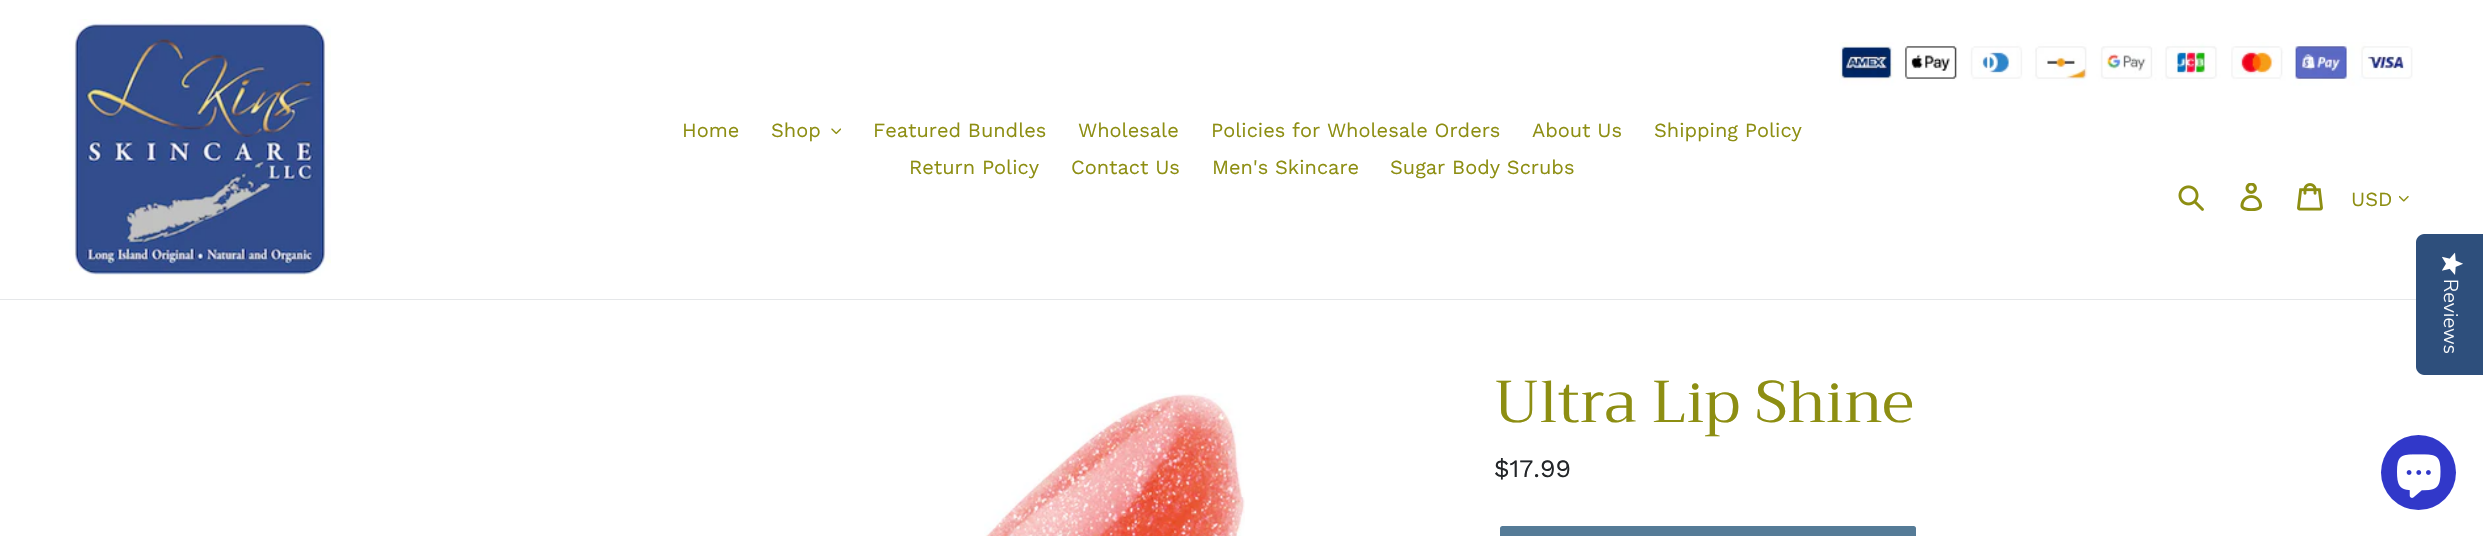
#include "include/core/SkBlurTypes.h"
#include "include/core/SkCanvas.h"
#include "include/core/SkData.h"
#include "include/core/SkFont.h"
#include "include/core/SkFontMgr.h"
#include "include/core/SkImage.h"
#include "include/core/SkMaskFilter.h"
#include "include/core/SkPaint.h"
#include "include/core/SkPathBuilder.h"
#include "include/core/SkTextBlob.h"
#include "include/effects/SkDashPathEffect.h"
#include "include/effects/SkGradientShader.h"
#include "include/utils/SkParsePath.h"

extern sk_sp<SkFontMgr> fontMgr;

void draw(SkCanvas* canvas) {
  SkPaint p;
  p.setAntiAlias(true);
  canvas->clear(SK_ColorWHITE);
  p.setColor(SkColorSetRGB(229, 231, 233));
  canvas->drawRect(SkRect::MakeLTRB(0, 299, 2416, 300), p);
  canvas->drawImageRect(SkImages::DeferredFromEncodedData(SkData::MakeFromFileName("images/1.png")), SkRect::MakeLTRB(69, 19, 331, 280), SkSamplingOptions());
  canvas->drawImageRect(SkImages::DeferredFromEncodedData(SkData::MakeFromFileName("images/2.png")), SkRect::MakeLTRB(831, 128, 841, 135), SkSamplingOptions());
  canvas->drawImageRect(SkImages::DeferredFromEncodedData(SkData::MakeFromFileName("images/3.png")), SkRect::MakeLTRB(1839, 42, 2413, 86), SkSamplingOptions());
  canvas->drawImageRect(SkImages::DeferredFromEncodedData(SkData::MakeFromFileName("images/4.png")), SkRect::MakeLTRB(2178, 185, 2204, 211), SkSamplingOptions());
  canvas->drawImageRect(SkImages::DeferredFromEncodedData(SkData::MakeFromFileName("images/5.png")), SkRect::MakeLTRB(2240, 183, 2263, 211), SkSamplingOptions());
  canvas->drawImageRect(SkImages::DeferredFromEncodedData(SkData::MakeFromFileName("images/6.png")), SkRect::MakeLTRB(2297, 183, 2323, 211), SkSamplingOptions());
  canvas->drawImageRect(SkImages::DeferredFromEncodedData(SkData::MakeFromFileName("images/7.png")), SkRect::MakeLTRB(2399, 195, 2409, 202), SkSamplingOptions());
  p.setColor(SkColorSetRGB(46, 79, 124));
  canvas->drawPath(SkPathBuilder().moveTo(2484, 234).lineTo(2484, 375).lineTo(2424, 375).cubicTo(2420, 375, 2416, 371, 2416, 367).lineTo(2416, 242).cubicTo(2416, 238, 2420, 234, 2424, 234).close().detach(), p);
  canvas->drawImageRect(SkImages::DeferredFromEncodedData(SkData::MakeFromFileName("images/8.png")), SkRect::MakeLTRB(2442, 252, 2463, 275), SkSamplingOptions());
  canvas->drawImageRect(SkImages::DeferredFromEncodedData(SkData::MakeFromFileName("images/9.png")), SkRect::MakeLTRB(984, 393, 1245, 536), SkSamplingOptions());
  p.setColor(SkColorSetRGB(85, 123, 151));
  canvas->drawRoundRect(SkRect::MakeLTRB(1500, 526, 1916, 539), 2.5f, 2.5f, p);
  p.setColor(SkColorSetRGB(49, 56, 201));
  canvas->drawCircle(2418.5f, 472.5f, 37.5f, p);
  canvas->drawImageRect(SkImages::DeferredFromEncodedData(SkData::MakeFromFileName("images/10.png")), SkRect::MakeLTRB(2397, 454, 2441, 498), SkSamplingOptions());
  SkFont font1(fontMgr->matchFamilyStyle("Work Sans", SkFontStyle::Normal()), 20);
  font1.setSubpixel(true);
  p.setColor(SkColorSetRGB(141, 142, 18));
  canvas->drawString("Home", 682, 137, font1, p);
  canvas->drawString("Shop", 771, 137, font1, p);
  canvas->drawString("Featured Bundles", 873, 137, font1, p);
  canvas->drawString("Wholesale", 1078, 137, font1, p);
  canvas->drawString("Policies for Wholesale Orders", 1211, 137, font1, p);
  canvas->drawString("About Us", 1532, 137, font1, p);
  canvas->drawString("Shipping Policy", 1654, 137, font1, p);
  canvas->drawString("Return Policy", 909, 174, font1, p);
  canvas->drawString("Contact Us", 1071, 174, font1, p);
  canvas->drawString("Men's Skincare", 1212, 174, font1, p);
  canvas->drawString("Sugar Body Scrubs", 1390, 174, font1, p);
  canvas->drawString("USD", 2351, 206, font1, p);
  SkFont font2(fontMgr->matchFamilyStyle("Nunito Sans", SkFontStyle(300, SkFontStyle::kNormal_Width, SkFontStyle::kUpright_Slant)), 20);
  font2.setSubpixel(true);
  p.setColor(SK_ColorWHITE);
  canvas->save();
  canvas->rotate(90, 2444, 279);
  canvas->drawString("Reviews", 2444, 279, font2, p);
  canvas->restore();
  SkFont font3(fontMgr->matchFamilyStyle("Trirong", SkFontStyle::Normal()), 58.75f);
  font3.setSubpixel(true);
  p.setColor(SkColorSetRGB(141, 142, 18));
  canvas->drawString("Ultra Lip Shine", 1494, 422, font3, p);
  SkFont font4(fontMgr->matchFamilyStyle("Work Sans", SkFontStyle::Normal()), 25);
  font4.setSubpixel(true);
  p.setColor(SkColorSetRGB(34, 37, 40));
  canvas->drawString("$17.99", 1494, 477, font4, p);
}
